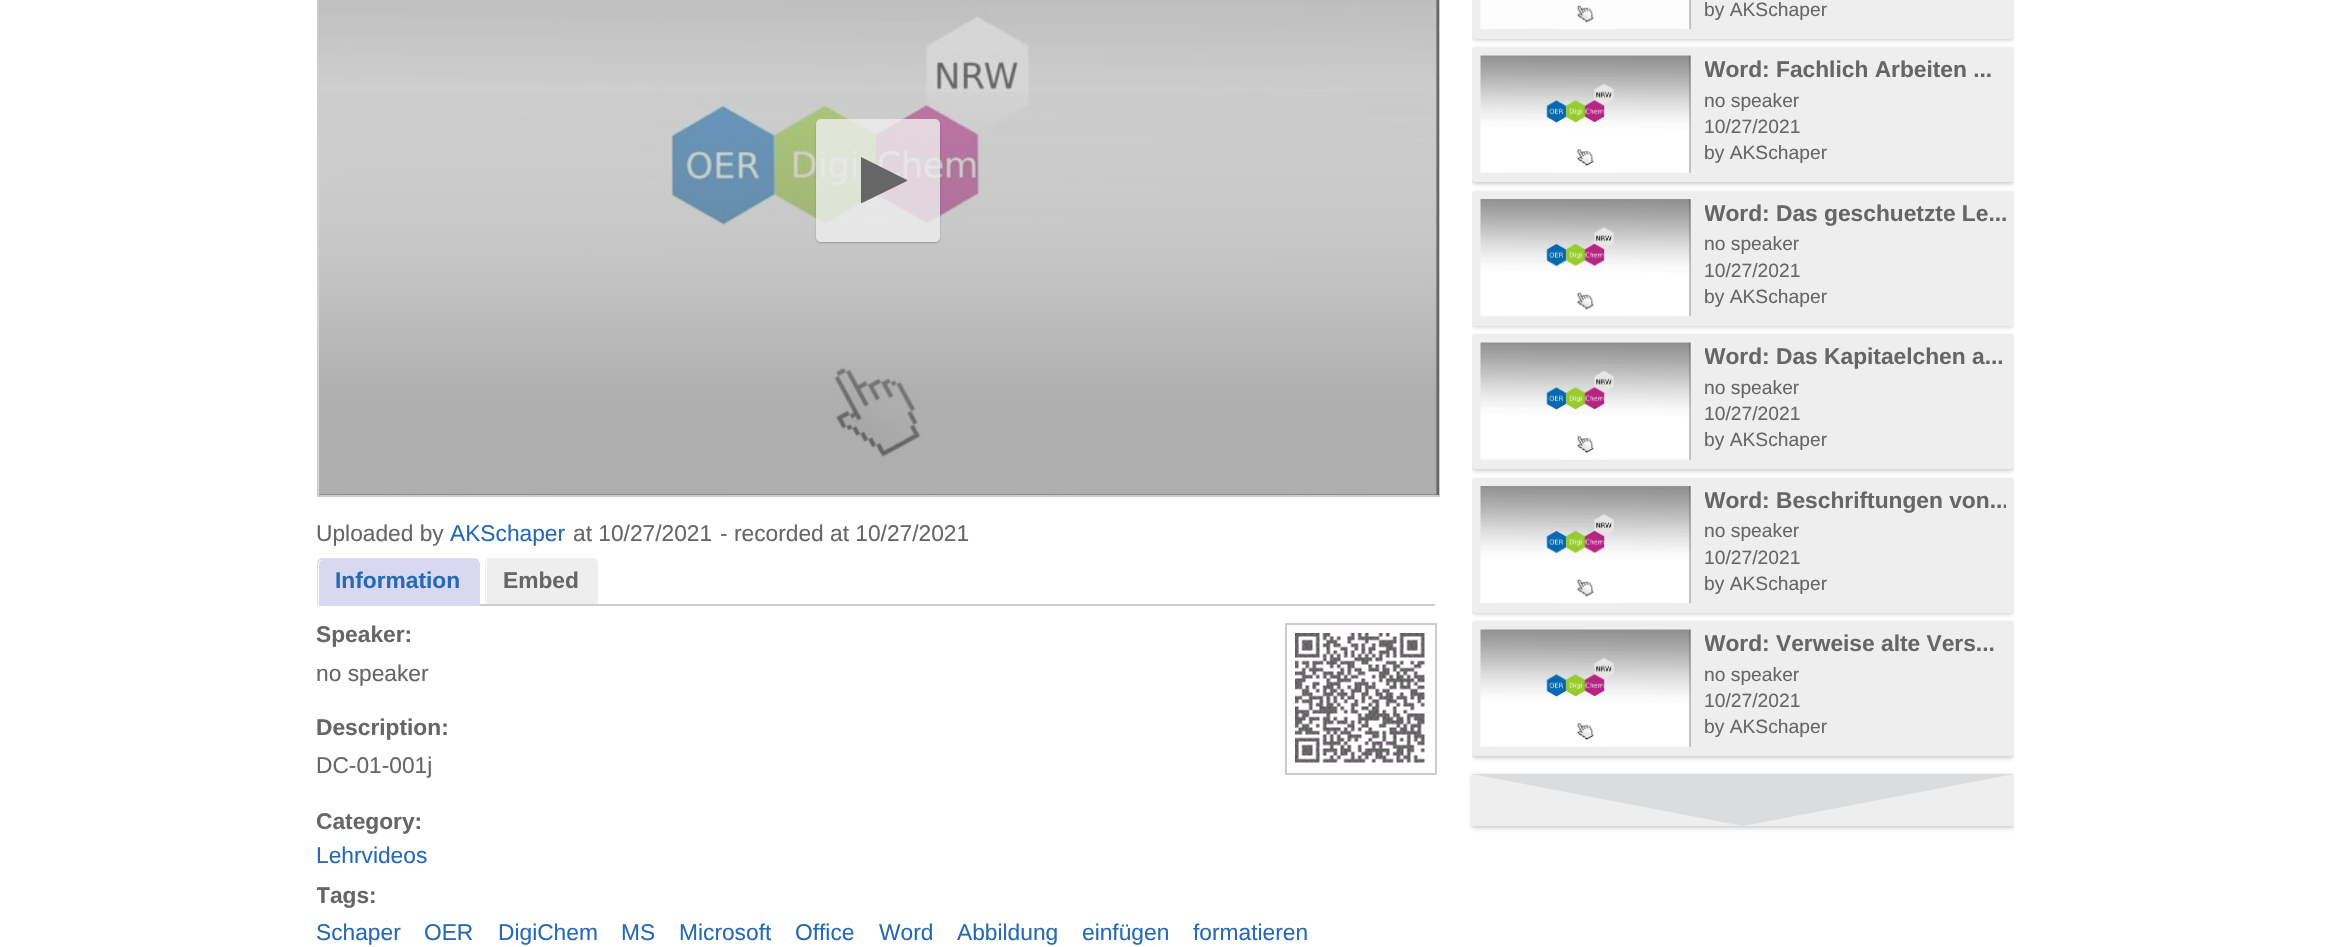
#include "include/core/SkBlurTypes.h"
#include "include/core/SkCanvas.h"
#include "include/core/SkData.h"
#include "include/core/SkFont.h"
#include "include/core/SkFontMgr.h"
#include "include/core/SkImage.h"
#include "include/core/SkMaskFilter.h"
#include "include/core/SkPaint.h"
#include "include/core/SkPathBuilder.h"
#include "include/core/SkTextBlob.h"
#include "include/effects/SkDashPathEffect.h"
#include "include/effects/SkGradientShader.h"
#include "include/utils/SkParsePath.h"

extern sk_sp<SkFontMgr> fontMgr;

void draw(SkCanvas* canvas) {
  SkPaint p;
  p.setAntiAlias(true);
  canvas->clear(SK_ColorWHITE);
  p.setStyle(SkPaint::kStroke_Style);
  p.setStrokeWidth(2);
  p.setColor(SkColorSetRGB(204, 204, 204));
  canvas->drawRect(SkRect::MakeLTRB(318, -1, 1439, 496), p);
  p.setStyle(SkPaint::kFill_Style);
  p.setColor(SK_ColorBLACK);
  canvas->drawRect(SkRect::MakeLTRB(319, 0, 1439, 495), p);
  canvas->drawImageRect(SkImages::DeferredFromEncodedData(SkData::MakeFromFileName("images/1.png")), SkRect::MakeLTRB(318, 0, 1439, 495), SkSamplingOptions());
  {
    const SkColor colors[] = {SkColorSetARGB(0, 0, 0, 0), SkColorSetARGB(102, 0, 0, 0), SkColorSetARGB(102, 0, 0, 0)};
    const float stops[] = {0, 0.77f, 1};
    const SkPoint ends[] = {{879, 75}, {879, 495}};
    p.setShader(SkGradientShader::MakeLinear(ends, colors, stops, 3, SkTileMode::kClamp));
    p.setAlpha(255);
  }
  canvas->drawRect(SkRect::MakeLTRB(319, 92, 1438, 495), p);
  p.setShader(nullptr);
  p.setColor(SkColorSetARGB(128, 198, 198, 198));
  canvas->drawRect(SkRect::MakeLTRB(319, 0, 1439, 495), p);
  canvas->save();
  canvas->clipPath(SkPathBuilder(SkPathFillType::kEvenOdd).moveTo(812, 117).lineTo(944, 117).lineTo(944, 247).lineTo(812, 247).close().moveTo(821, 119).lineTo(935, 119).cubicTo(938, 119, 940, 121, 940, 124).lineTo(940, 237).cubicTo(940, 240, 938, 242, 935, 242).lineTo(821, 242).cubicTo(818, 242, 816, 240, 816, 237).lineTo(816, 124).cubicTo(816, 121, 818, 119, 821, 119).close().detach(), true);
  p.setColor(SkColorSetARGB(64, 0, 0, 0));
  p.setMaskFilter(SkMaskFilter::MakeBlur(kNormal_SkBlurStyle, 1));
  canvas->drawRoundRect(SkRect::MakeLTRB(816, 121, 940, 243), 5, 5, p);
  p.setMaskFilter(nullptr);
  canvas->restore();
  p.setColor(SkColorSetARGB(204, 238, 238, 238));
  canvas->drawRoundRect(SkRect::MakeLTRB(816, 119, 940, 242), 5, 5, p);
  p.setColor(SkColorSetRGB(102, 102, 102));
  canvas->drawPath(SkPathBuilder().moveTo(862, 203).lineTo(861, 203).lineTo(861, 157).lineTo(907, 180).lineTo(907, 181).close().detach(), p);
  p.setColor(SkColorSetRGB(204, 204, 204));
  canvas->drawRect(SkRect::MakeLTRB(480, 604, 1435, 606), p);
  p.setColor(SkColorSetRGB(216, 216, 240));
  canvas->drawPath(SkPathBuilder().moveTo(323, 560).lineTo(474, 560).cubicTo(476, 560, 478, 562, 478, 564).lineTo(478, 606).lineTo(319, 606).lineTo(319, 564).cubicTo(319, 562, 321, 560, 323, 560).close().detach(), p);
  canvas->drawPath(SkPathBuilder(SkPathFillType::kEvenOdd).moveTo(322, 558).lineTo(474, 558).cubicTo(477, 558, 480, 561, 480, 564).lineTo(480, 606).lineTo(317, 606).lineTo(317, 564).cubicTo(317, 561, 319, 558, 322, 558).close().moveTo(322, 560).lineTo(474, 560).cubicTo(476, 560, 478, 562, 478, 564).lineTo(478, 606).lineTo(318, 606).lineTo(318, 564).cubicTo(318, 562, 320, 560, 322, 560).close().detach(), p);
  p.setColor(SkColorSetRGB(238, 238, 238));
  canvas->drawPath(SkPathBuilder().moveTo(491, 560).lineTo(593, 560).cubicTo(595, 560, 597, 562, 597, 564).lineTo(597, 604).lineTo(487, 604).lineTo(487, 564).cubicTo(487, 562, 489, 560, 491, 560).close().detach(), p);
  canvas->drawPath(SkPathBuilder(SkPathFillType::kEvenOdd).moveTo(490, 558).lineTo(593, 558).cubicTo(596, 558, 598, 561, 598, 564).lineTo(598, 604).lineTo(485, 604).lineTo(485, 564).cubicTo(485, 561, 487, 558, 490, 558).close().moveTo(490, 560).lineTo(593, 560).cubicTo(595, 560, 597, 562, 597, 564).lineTo(597, 604).lineTo(486, 604).lineTo(486, 564).cubicTo(486, 562, 488, 560, 490, 560).close().detach(), p);
  p.setColor(SkColorSetRGB(204, 204, 204));
  canvas->drawPath(SkPathBuilder(SkPathFillType::kEvenOdd).moveTo(1285, 623).lineTo(1437, 623).lineTo(1437, 775).lineTo(1285, 775).close().moveTo(1287, 625).lineTo(1287, 773).lineTo(1435, 773).lineTo(1435, 625).close().detach(), p);
  canvas->drawImageRect(SkImages::DeferredFromEncodedData(SkData::MakeFromFileName("images/2.png")), SkRect::MakeLTRB(1295, 633, 1425, 763), SkSamplingOptions());
  canvas->save();
  canvas->clipRect(SkRect::MakeLTRB(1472, 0, 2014, 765));
  p.setMaskFilter(SkMaskFilter::MakeBlur(kNormal_SkBlurStyle, 2));
  canvas->drawRoundRect(SkRect::MakeLTRB(1472, -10, 2014, 40), 4, 4, p);
  p.setMaskFilter(nullptr);
  canvas->restore();
  p.setColor(SkColorSetRGB(238, 238, 238));
  canvas->drawRoundRect(SkRect::MakeLTRB(1472, -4, 2014, 39), 4, 4, p);
  canvas->drawImageRect(SkImages::DeferredFromEncodedData(SkData::MakeFromFileName("images/3.png")), SkRect::MakeLTRB(1480, 0, 1691, 30), SkSamplingOptions());
  canvas->save();
  canvas->clipRect(SkRect::MakeLTRB(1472, 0, 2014, 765));
  p.setColor(SkColorSetRGB(204, 204, 204));
  p.setMaskFilter(SkMaskFilter::MakeBlur(kNormal_SkBlurStyle, 2));
  canvas->drawRoundRect(SkRect::MakeLTRB(1472, 49, 2014, 184), 4, 4, p);
  p.setMaskFilter(nullptr);
  canvas->restore();
  p.setColor(SkColorSetRGB(238, 238, 238));
  canvas->drawRoundRect(SkRect::MakeLTRB(1472, 47, 2014, 182), 4, 4, p);
  canvas->drawImageRect(SkImages::DeferredFromEncodedData(SkData::MakeFromFileName("images/4.png")), SkRect::MakeLTRB(1480, 55, 1691, 173), SkSamplingOptions());
  canvas->save();
  canvas->clipRect(SkRect::MakeLTRB(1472, 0, 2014, 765));
  p.setColor(SkColorSetRGB(204, 204, 204));
  p.setMaskFilter(SkMaskFilter::MakeBlur(kNormal_SkBlurStyle, 2));
  canvas->drawRoundRect(SkRect::MakeLTRB(1472, 193, 2014, 327), 4, 4, p);
  p.setMaskFilter(nullptr);
  canvas->restore();
  p.setColor(SkColorSetRGB(238, 238, 238));
  canvas->drawRoundRect(SkRect::MakeLTRB(1472, 191, 2014, 326), 4, 4, p);
  canvas->drawImageRect(SkImages::DeferredFromEncodedData(SkData::MakeFromFileName("images/5.png")), SkRect::MakeLTRB(1480, 199, 1691, 317), SkSamplingOptions());
  canvas->save();
  canvas->clipRect(SkRect::MakeLTRB(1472, 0, 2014, 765));
  p.setColor(SkColorSetRGB(204, 204, 204));
  p.setMaskFilter(SkMaskFilter::MakeBlur(kNormal_SkBlurStyle, 2));
  canvas->drawRoundRect(SkRect::MakeLTRB(1472, 336, 2014, 471), 4, 4, p);
  p.setMaskFilter(nullptr);
  canvas->restore();
  p.setColor(SkColorSetRGB(238, 238, 238));
  canvas->drawRoundRect(SkRect::MakeLTRB(1472, 334, 2014, 469), 4, 4, p);
  canvas->drawImageRect(SkImages::DeferredFromEncodedData(SkData::MakeFromFileName("images/6.png")), SkRect::MakeLTRB(1480, 342, 1691, 460), SkSamplingOptions());
  canvas->save();
  canvas->clipRect(SkRect::MakeLTRB(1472, 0, 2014, 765));
  p.setColor(SkColorSetRGB(204, 204, 204));
  p.setMaskFilter(SkMaskFilter::MakeBlur(kNormal_SkBlurStyle, 2));
  canvas->drawRoundRect(SkRect::MakeLTRB(1472, 480, 2014, 614), 4, 4, p);
  p.setMaskFilter(nullptr);
  canvas->restore();
  p.setColor(SkColorSetRGB(238, 238, 238));
  canvas->drawRoundRect(SkRect::MakeLTRB(1472, 478, 2014, 613), 4, 4, p);
  canvas->drawImageRect(SkImages::DeferredFromEncodedData(SkData::MakeFromFileName("images/7.png")), SkRect::MakeLTRB(1480, 486, 1691, 604), SkSamplingOptions());
  canvas->save();
  canvas->clipRect(SkRect::MakeLTRB(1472, 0, 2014, 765));
  p.setColor(SkColorSetRGB(204, 204, 204));
  p.setMaskFilter(SkMaskFilter::MakeBlur(kNormal_SkBlurStyle, 2));
  canvas->drawRoundRect(SkRect::MakeLTRB(1472, 623, 2014, 758), 4, 4, p);
  p.setMaskFilter(nullptr);
  canvas->restore();
  p.setColor(SkColorSetRGB(238, 238, 238));
  canvas->drawRoundRect(SkRect::MakeLTRB(1472, 621, 2014, 756), 4, 4, p);
  canvas->drawImageRect(SkImages::DeferredFromEncodedData(SkData::MakeFromFileName("images/6.png")), SkRect::MakeLTRB(1480, 629, 1691, 747), SkSamplingOptions());
  canvas->save();
  canvas->clipRect(SkRect::MakeLTRB(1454, 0, 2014, 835));
  p.setColor(SkColorSetRGB(204, 204, 204));
  p.setMaskFilter(SkMaskFilter::MakeBlur(kNormal_SkBlurStyle, 2));
  canvas->drawRect(SkRect::MakeLTRB(1472, 775, 2014, 828), p);
  p.setMaskFilter(nullptr);
  canvas->restore();
  p.setColor(SkColorSetRGB(238, 238, 238));
  canvas->drawRect(SkRect::MakeLTRB(1472, 774, 2014, 826), p);
  p.setColor(SkColorSetRGB(219, 220, 221));
  canvas->drawPath(SkPathBuilder().moveTo(1472, 774).lineTo(2014, 774).lineTo(1743, 826).close().detach(), p);
  SkFont font1(fontMgr->matchFamilyStyle("Liberation Sans", SkFontStyle::Normal()), 22.75f);
  font1.setSubpixel(true);
  p.setColor(SkColorSetRGB(102, 102, 102));
  canvas->drawString("Uploaded by", 316, 541, font1, p);
  p.setColor(SkColorSetRGB(38, 106, 179));
  canvas->drawString("AKSchaper", 450, 541, font1, p);
  p.setColor(SkColorSetRGB(102, 102, 102));
  canvas->drawString("at 10/27/2021", 573, 541, font1, p);
  canvas->drawString("- recorded at 10/27/2021", 720, 541, font1, p);
  SkFont font2(fontMgr->matchFamilyStyle("Liberation Sans", SkFontStyle::Bold()), 22.75f);
  font2.setSubpixel(true);
  p.setColor(SkColorSetRGB(38, 106, 179));
  canvas->drawString("Information", 335, 588, font2, p);
  p.setColor(SkColorSetRGB(102, 102, 102));
  canvas->drawString("Embed", 503, 588, font2, p);
  canvas->drawString("Speaker:", 316, 642, font2, p);
  canvas->drawString("no speaker", 316, 681, font1, p);
  canvas->drawString("Description:", 316, 735, font2, p);
  canvas->drawString("DC-01-001j", 316, 773, font1, p);
  canvas->save();
  canvas->clipPath(SkPathBuilder().moveTo(322, 556.5f).lineTo(1431.5f, 556.5f).cubicTo(1434.5f, 556.5f, 1437, 559, 1437, 562).lineTo(1437, 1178).cubicTo(1437, 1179.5f, 1434.5f, 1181, 1431.5f, 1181).lineTo(322, 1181).cubicTo(319, 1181, 317, 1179.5f, 317, 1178).lineTo(317, 562).cubicTo(317, 559, 319, 556.5f, 322, 556.5f).close().detach(), true);
  canvas->drawString("Category:", 316, 829, font2, p);
  canvas->restore();
  p.setColor(SkColorSetRGB(38, 106, 179));
  canvas->drawString("Lehrvideos", 316, 863, font1, p);
  canvas->save();
  canvas->clipPath(SkPathBuilder().moveTo(322, 556.5f).lineTo(1431.5f, 556.5f).cubicTo(1434.5f, 556.5f, 1437, 559, 1437, 562).lineTo(1437, 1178).cubicTo(1437, 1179.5f, 1434.5f, 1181, 1431.5f, 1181).lineTo(322, 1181).cubicTo(319, 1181, 317, 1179.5f, 317, 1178).lineTo(317, 562).cubicTo(317, 559, 319, 556.5f, 322, 556.5f).close().detach(), true);
  p.setColor(SkColorSetRGB(102, 102, 102));
  canvas->drawString("Tags:", 316, 903, font2, p);
  canvas->restore();
  p.setColor(SkColorSetRGB(38, 106, 179));
  canvas->drawString("Schaper", 316, 940, font1, p);
  canvas->drawString("OER", 424, 940, font1, p);
  canvas->drawString("DigiChem", 498, 940, font1, p);
  canvas->drawString("MS", 621, 940, font1, p);
  canvas->drawString("Microsoft", 679, 940, font1, p);
  canvas->drawString("Office", 795, 940, font1, p);
  canvas->drawString("Word", 879, 940, font1, p);
  canvas->drawString("Abbildung", 957, 940, font1, p);
  canvas->drawString("einfügen", 1082, 940, font1, p);
  canvas->drawString("formatieren", 1193, 940, font1, p);
  canvas->save();
  canvas->clipRect(SkRect::MakeLTRB(1705, 0, 2006, 23));
  SkFont font3(fontMgr->matchFamilyStyle("Liberation Sans", SkFontStyle::Normal()), 19.25f);
  font3.setSubpixel(true);
  p.setColor(SkColorSetRGB(102, 102, 102));
  canvas->drawString("by AKSchaper", 1704, 16, font3, p);
  canvas->restore();
  canvas->save();
  canvas->clipRect(SkRect::MakeLTRB(1705, 56, 2006, 84));
  canvas->drawString("Word: Fachlich Arbeiten ...", 1704, 77, font2, p);
  canvas->restore();
  canvas->drawString("no speaker", 1704, 107, font3, p);
  canvas->drawString("10/27/2021", 1704, 133, font3, p);
  canvas->save();
  canvas->clipRect(SkRect::MakeLTRB(1705, 140, 2006, 166));
  canvas->drawString("by AKSchaper", 1704, 159, font3, p);
  canvas->restore();
  canvas->save();
  canvas->clipRect(SkRect::MakeLTRB(1705, 200, 2006, 228));
  canvas->drawString("Word: Das geschuetzte Le...", 1704, 221, font2, p);
  canvas->restore();
  canvas->drawString("no speaker", 1704, 250, font3, p);
  canvas->drawString("10/27/2021", 1704, 277, font3, p);
  canvas->save();
  canvas->clipRect(SkRect::MakeLTRB(1705, 284, 2006, 310));
  canvas->drawString("by AKSchaper", 1704, 303, font3, p);
  canvas->restore();
  canvas->save();
  canvas->clipRect(SkRect::MakeLTRB(1705, 343, 2006, 371));
  canvas->drawString("Word: Das Kapitaelchen a...", 1704, 364, font2, p);
  canvas->restore();
  canvas->drawString("no speaker", 1704, 394, font3, p);
  canvas->drawString("10/27/2021", 1704, 420, font3, p);
  canvas->save();
  canvas->clipRect(SkRect::MakeLTRB(1705, 427, 2006, 453));
  canvas->drawString("by AKSchaper", 1704, 446, font3, p);
  canvas->restore();
  canvas->save();
  canvas->clipRect(SkRect::MakeLTRB(1705, 487, 2006, 515));
  canvas->drawString("Word: Beschriftungen von...", 1704, 508, font2, p);
  canvas->restore();
  canvas->drawString("no speaker", 1704, 537, font3, p);
  canvas->drawString("10/27/2021", 1704, 564, font3, p);
  canvas->save();
  canvas->clipRect(SkRect::MakeLTRB(1705, 571, 2006, 597));
  canvas->drawString("by AKSchaper", 1704, 590, font3, p);
  canvas->restore();
  canvas->save();
  canvas->clipRect(SkRect::MakeLTRB(1705, 630, 2006, 658));
  canvas->drawString("Word: Verweise alte Vers...", 1704, 651, font2, p);
  canvas->restore();
  canvas->drawString("no speaker", 1704, 681, font3, p);
  canvas->drawString("10/27/2021", 1704, 707, font3, p);
  canvas->save();
  canvas->clipRect(SkRect::MakeLTRB(1705, 714, 2006, 740));
  canvas->drawString("by AKSchaper", 1704, 733, font3, p);
  canvas->restore();
}
